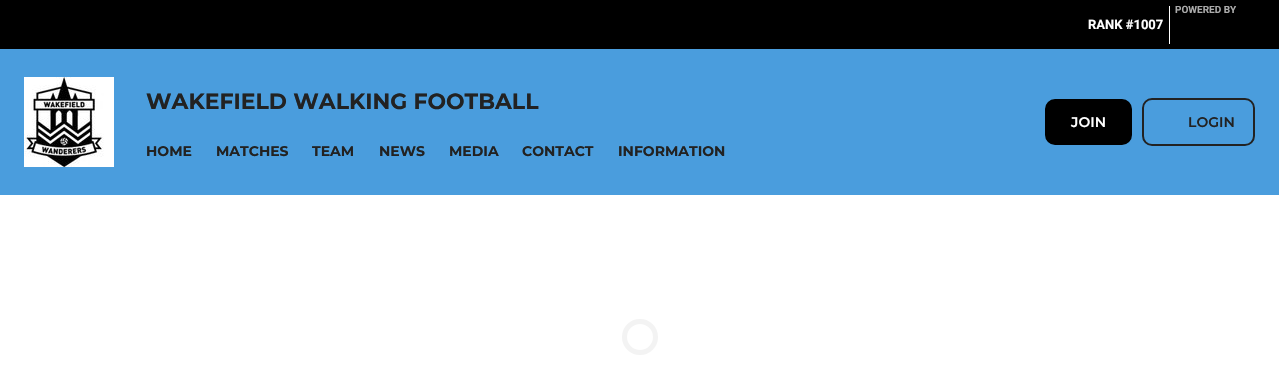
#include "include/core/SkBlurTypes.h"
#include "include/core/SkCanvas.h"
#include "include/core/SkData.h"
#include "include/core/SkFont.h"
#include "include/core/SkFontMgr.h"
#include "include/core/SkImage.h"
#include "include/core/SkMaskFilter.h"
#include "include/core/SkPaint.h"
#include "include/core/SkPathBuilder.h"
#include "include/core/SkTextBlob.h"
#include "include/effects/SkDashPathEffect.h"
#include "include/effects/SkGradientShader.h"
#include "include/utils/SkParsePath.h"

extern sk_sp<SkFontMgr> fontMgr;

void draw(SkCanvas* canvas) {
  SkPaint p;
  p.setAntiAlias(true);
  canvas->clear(SkColorSetRGB(74, 157, 221));
  p.setColor(SK_ColorBLACK);
  canvas->drawRect(SkRect::MakeLTRB(0, 0, 1279, 49), p);
  p.setColor(SK_ColorWHITE);
  canvas->drawRect(SkRect::MakeLTRB(1169, 6, 1170, 44), p);
  canvas->drawImageRect(SkImages::DeferredFromEncodedData(SkData::MakeFromFileName("images/1.png")), SkRect::MakeLTRB(24, 77, 114, 167), SkSamplingOptions());
  p.setColor(SK_ColorBLACK);
  canvas->drawRoundRect(SkRect::MakeLTRB(1046, 100, 1131, 144), 9, 9, p);
  p.setStyle(SkPaint::kStroke_Style);
  p.setStrokeWidth(2);
  canvas->drawRoundRect(SkRect::MakeLTRB(1046, 100, 1131, 144), 9, 9, p);
  p.setColor(SkColorSetRGB(34, 34, 34));
  canvas->drawRoundRect(SkRect::MakeLTRB(1143, 99, 1254, 145), 9, 9, p);
  p.setStyle(SkPaint::kFill_Style);
  p.setColor(SK_ColorWHITE);
  canvas->drawRect(SkRect::MakeLTRB(0, 195, 1279, 382), p);
  p.setStyle(SkPaint::kStroke_Style);
  p.setStrokeWidth(5);
  p.setColor(SkColorSetRGB(243, 243, 243));
  canvas->drawCircle(640, 337, 15.5f, p);
  SkFont font1(fontMgr->matchFamilyStyle("Roboto", SkFontStyle::Bold()), 13);
  font1.setSubpixel(true);
  p.setStyle(SkPaint::kFill_Style);
  p.setColor(SK_ColorWHITE);
  canvas->drawString("RANK #1007", 1088, 29, font1, p);
  SkFont font2(fontMgr->matchFamilyStyle("Roboto", SkFontStyle::Bold()), 10);
  font2.setSubpixel(true);
  p.setColor(SkColorSetRGB(171, 171, 171));
  canvas->drawString("POWERED BY", 1175, 13, font2, p);
  SkFont font3(fontMgr->matchFamilyStyle("Montserrat", SkFontStyle::Bold()), 22);
  font3.setSubpixel(true);
  p.setColor(SkColorSetRGB(34, 34, 34));
  canvas->drawString("WAKEFIELD WALKING FOOTBALL", 146, 109, font3, p);
  SkFont font4(fontMgr->matchFamilyStyle("Montserrat", SkFontStyle::Bold()), 14);
  font4.setSubpixel(true);
  canvas->drawString("HOME", 146, 156, font4, p);
  canvas->drawString("MATCHES", 216, 156, font4, p);
  canvas->drawString("TEAM", 312, 156, font4, p);
  canvas->drawString("NEWS", 379, 156, font4, p);
  canvas->drawString("MEDIA", 449, 156, font4, p);
  canvas->drawString("CONTACT", 522, 156, font4, p);
  canvas->drawString("INFORMATION", 618, 156, font4, p);
  SkFont font5(fontMgr->matchFamilyStyle("Montserrat", SkFontStyle(600, SkFontStyle::kNormal_Width, SkFontStyle::kUpright_Slant)), 14);
  font5.setSubpixel(true);
  p.setColor(SK_ColorWHITE);
  canvas->drawString("JOIN", 1071, 127, font5, p);
  p.setColor(SkColorSetRGB(34, 34, 34));
  canvas->drawString("LOGIN", 1188, 127, font5, p);
}
